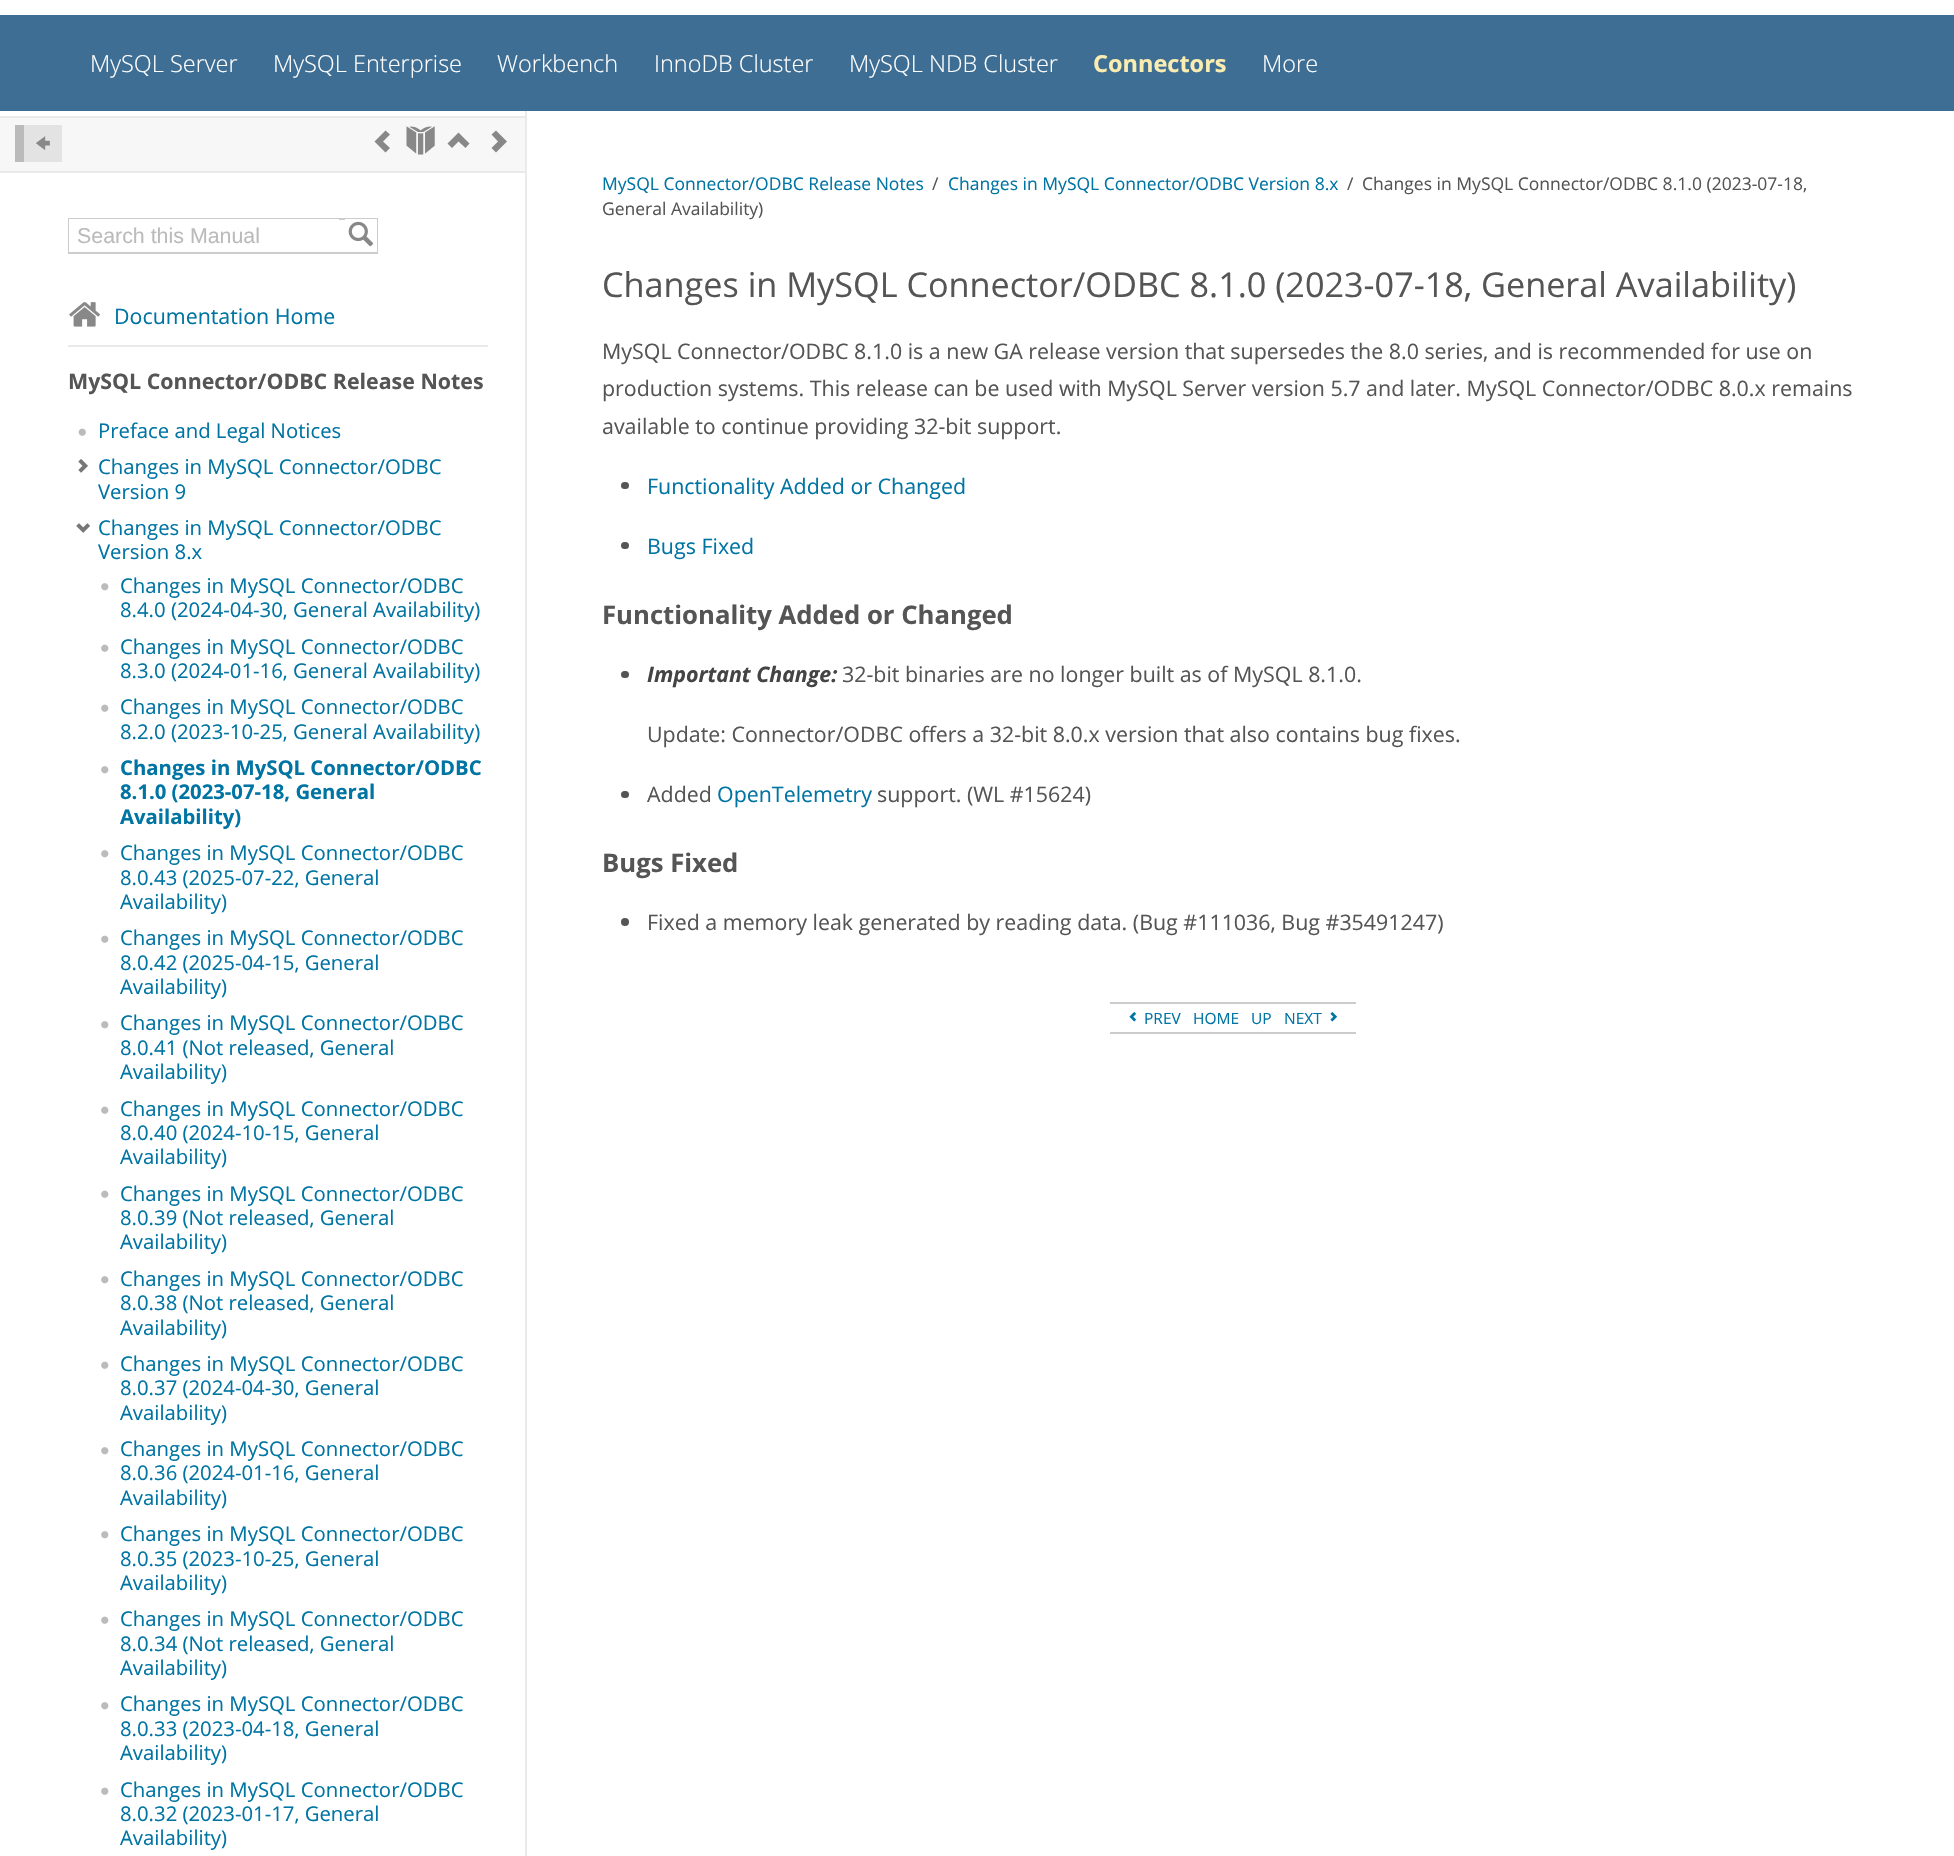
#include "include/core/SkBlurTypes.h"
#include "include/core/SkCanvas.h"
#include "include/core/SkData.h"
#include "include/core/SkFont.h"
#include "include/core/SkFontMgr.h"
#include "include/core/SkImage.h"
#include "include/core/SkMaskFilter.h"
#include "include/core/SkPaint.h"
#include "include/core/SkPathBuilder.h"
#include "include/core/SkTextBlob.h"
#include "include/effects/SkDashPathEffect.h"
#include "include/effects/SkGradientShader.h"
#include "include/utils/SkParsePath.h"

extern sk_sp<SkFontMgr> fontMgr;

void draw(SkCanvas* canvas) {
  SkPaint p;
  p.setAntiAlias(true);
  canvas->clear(SK_ColorWHITE);
  p.setColor(SkColorSetRGB(62, 110, 147));
  canvas->drawRect(SkRect::MakeLTRB(0, 15, 1954, 111), p);
  p.setColor(SkColorSetRGB(233, 234, 235));
  canvas->drawRect(SkRect::MakeLTRB(525, 111, 527, 1856), p);
  p.setColor(SkColorSetRGB(247, 247, 247));
  canvas->drawRect(SkRect::MakeLTRB(0, 118, 525, 171), p);
  p.setColor(SkColorSetRGB(233, 234, 235));
  canvas->drawRect(SkRect::MakeLTRB(0, 116, 525, 118), p);
  canvas->drawRect(SkRect::MakeLTRB(0, 171, 525, 173), p);
  p.setColor(SkColorSetRGB(227, 227, 227));
  canvas->drawRect(SkRect::MakeLTRB(24, 125, 62, 162), p);
  p.setColor(SkColorSetRGB(187, 187, 187));
  canvas->drawRect(SkRect::MakeLTRB(15, 125, 24, 162), p);
  canvas->drawImageRect(SkImages::DeferredFromEncodedData(SkData::MakeFromFileName("images/1.png")), SkRect::MakeLTRB(36, 136, 50, 150), SkSamplingOptions());
  p.setColor(SkColorSetRGB(136, 136, 136));
  canvas->drawPath(SkPathBuilder().moveTo(390, 134.5f).lineTo(385.5f, 130.5f).lineTo(374.5f, 141.5f).lineTo(385.5f, 152.5f).lineTo(390, 148).lineTo(383, 141.5f).close().detach(), p);
  canvas->drawImageRect(SkImages::DeferredFromEncodedData(SkData::MakeFromFileName("images/2.png")), SkRect::MakeLTRB(406, 126, 435, 155), SkSamplingOptions());
  canvas->drawPath(SkPathBuilder().moveTo(458.5f, 132.5f).lineTo(447.5f, 143.5f).lineTo(452, 148).lineTo(458.5f, 141.5f).lineTo(465.5f, 148).lineTo(469.5f, 143.5f).close().moveTo(496, 130.5f).lineTo(491.5f, 134.5f).lineTo(498, 141.5f).lineTo(491.5f, 148).lineTo(496, 152.5f).lineTo(507, 141.5f).close().detach(), p);
  p.setStyle(SkPaint::kStroke_Style);
  p.setStrokeWidth(2);
  p.setColor(SkColorSetRGB(204, 204, 204));
  canvas->drawRect(SkRect::MakeLTRB(69, 219, 377, 253), p);
  p.setStyle(SkPaint::kFill_Style);
  p.setColor(SK_ColorWHITE);
  canvas->drawRect(SkRect::MakeLTRB(69, 219, 339, 252), p);
  canvas->drawRect(SkRect::MakeLTRB(345, 219, 377, 252), p);
  canvas->drawImageRect(SkImages::DeferredFromEncodedData(SkData::MakeFromFileName("images/3.png")), SkRect::MakeLTRB(348, 221, 374, 247), SkSamplingOptions());
  canvas->drawImageRect(SkImages::DeferredFromEncodedData(SkData::MakeFromFileName("images/4.png")), SkRect::MakeLTRB(69, 302, 100, 327), SkSamplingOptions());
  p.setColor(SkColorSetRGB(233, 234, 235));
  canvas->drawRect(SkRect::MakeLTRB(68, 345, 488, 347), p);
  canvas->drawImageRect(SkImages::DeferredFromEncodedData(SkData::MakeFromFileName("images/5.png")), SkRect::MakeLTRB(78, 428, 86, 436), SkSamplingOptions());
  canvas->drawImageRect(SkImages::DeferredFromEncodedData(SkData::MakeFromFileName("images/6.png")), SkRect::MakeLTRB(78, 459, 88, 473), SkSamplingOptions());
  canvas->drawImageRect(SkImages::DeferredFromEncodedData(SkData::MakeFromFileName("images/7.png")), SkRect::MakeLTRB(76, 523, 90, 533), SkSamplingOptions());
  canvas->drawImageRect(SkImages::DeferredFromEncodedData(SkData::MakeFromFileName("images/8.png")), SkRect::MakeLTRB(101, 583, 109, 591), SkSamplingOptions());
  canvas->drawImageRect(SkImages::DeferredFromEncodedData(SkData::MakeFromFileName("images/9.png")), SkRect::MakeLTRB(101, 644, 109, 652), SkSamplingOptions());
  canvas->drawImageRect(SkImages::DeferredFromEncodedData(SkData::MakeFromFileName("images/9.png")), SkRect::MakeLTRB(101, 704, 109, 712), SkSamplingOptions());
  canvas->drawImageRect(SkImages::DeferredFromEncodedData(SkData::MakeFromFileName("images/8.png")), SkRect::MakeLTRB(101, 766, 109, 774), SkSamplingOptions());
  canvas->drawImageRect(SkImages::DeferredFromEncodedData(SkData::MakeFromFileName("images/8.png")), SkRect::MakeLTRB(101, 850, 109, 858), SkSamplingOptions());
  canvas->drawImageRect(SkImages::DeferredFromEncodedData(SkData::MakeFromFileName("images/9.png")), SkRect::MakeLTRB(101, 935, 109, 943), SkSamplingOptions());
  canvas->drawImageRect(SkImages::DeferredFromEncodedData(SkData::MakeFromFileName("images/8.png")), SkRect::MakeLTRB(101, 1021, 109, 1029), SkSamplingOptions());
  canvas->drawImageRect(SkImages::DeferredFromEncodedData(SkData::MakeFromFileName("images/9.png")), SkRect::MakeLTRB(101, 1106, 109, 1114), SkSamplingOptions());
  canvas->drawImageRect(SkImages::DeferredFromEncodedData(SkData::MakeFromFileName("images/9.png")), SkRect::MakeLTRB(101, 1190, 109, 1198), SkSamplingOptions());
  canvas->drawImageRect(SkImages::DeferredFromEncodedData(SkData::MakeFromFileName("images/8.png")), SkRect::MakeLTRB(101, 1276, 109, 1284), SkSamplingOptions());
  canvas->drawImageRect(SkImages::DeferredFromEncodedData(SkData::MakeFromFileName("images/9.png")), SkRect::MakeLTRB(101, 1361, 109, 1369), SkSamplingOptions());
  canvas->drawImageRect(SkImages::DeferredFromEncodedData(SkData::MakeFromFileName("images/8.png")), SkRect::MakeLTRB(101, 1447, 109, 1455), SkSamplingOptions());
  canvas->drawImageRect(SkImages::DeferredFromEncodedData(SkData::MakeFromFileName("images/8.png")), SkRect::MakeLTRB(101, 1531, 109, 1539), SkSamplingOptions());
  canvas->drawImageRect(SkImages::DeferredFromEncodedData(SkData::MakeFromFileName("images/9.png")), SkRect::MakeLTRB(101, 1616, 109, 1624), SkSamplingOptions());
  canvas->drawImageRect(SkImages::DeferredFromEncodedData(SkData::MakeFromFileName("images/8.png")), SkRect::MakeLTRB(101, 1702, 109, 1710), SkSamplingOptions());
  canvas->drawImageRect(SkImages::DeferredFromEncodedData(SkData::MakeFromFileName("images/9.png")), SkRect::MakeLTRB(101, 1787, 109, 1795), SkSamplingOptions());
  p.setColor(SkColorSetRGB(85, 85, 85));
  canvas->drawRoundRect(SkRect::MakeLTRB(621, 482, 629, 489), 3.5f, 3.5f, p);
  canvas->drawRoundRect(SkRect::MakeLTRB(621, 542, 629, 549), 3.5f, 3.5f, p);
  canvas->drawRoundRect(SkRect::MakeLTRB(621, 671, 629, 678), 3.5f, 3.5f, p);
  canvas->drawRoundRect(SkRect::MakeLTRB(621, 791, 629, 798), 3.5f, 3.5f, p);
  canvas->drawCircle(625, 922, 4, p);
  p.setColor(SkColorSetRGB(204, 204, 204));
  canvas->drawRect(SkRect::MakeLTRB(1110, 1002, 1356, 1004), p);
  canvas->drawRect(SkRect::MakeLTRB(1110, 1032, 1356, 1034), p);
  canvas->drawImageRect(SkImages::DeferredFromEncodedData(SkData::MakeFromFileName("images/10.png")), SkRect::MakeLTRB(1129, 1012, 1137, 1022), SkSamplingOptions());
  canvas->drawImageRect(SkImages::DeferredFromEncodedData(SkData::MakeFromFileName("images/11.png")), SkRect::MakeLTRB(1330, 1012, 1338, 1022), SkSamplingOptions());
  SkFont font1(fontMgr->matchFamilyStyle("Open Sans", SkFontStyle(300, SkFontStyle::kNormal_Width, SkFontStyle::kUpright_Slant)), 23.5f);
  font1.setSubpixel(true);
  p.setColor(SK_ColorWHITE);
  canvas->drawString("MySQL Server", 90, 72, font1, p);
  canvas->drawString("MySQL Enterprise", 273, 72, font1, p);
  canvas->drawString("Workbench", 497, 72, font1, p);
  canvas->drawString("InnoDB Cluster", 654, 72, font1, p);
  canvas->drawString("MySQL NDB Cluster", 849, 72, font1, p);
  SkFont font2(fontMgr->matchFamilyStyle("Open Sans", SkFontStyle::Bold()), 23.5f);
  font2.setSubpixel(true);
  p.setColor(SkColorSetRGB(250, 237, 178));
  canvas->drawString("Connectors", 1093, 72, font2, p);
  p.setColor(SK_ColorWHITE);
  canvas->drawString("More", 1262, 72, font1, p);
  SkFont font3(fontMgr->matchFamilyStyle("Liberation Sans", SkFontStyle::Normal()), 21.38f);
  font3.setSubpixel(true);
  p.setColor(SkColorSetRGB(187, 187, 187));
  canvas->drawString("Search this Manual", 77, 243, font3, p);
  SkFont font4(fontMgr->matchFamilyStyle("Open Sans", SkFontStyle::Normal()), 21.38f);
  font4.setSubpixel(true);
  p.setColor(SkColorSetRGB(0, 116, 163));
  canvas->drawString("Documentation Home", 114, 324, font4, p);
  SkFont font5(fontMgr->matchFamilyStyle("Open Sans", SkFontStyle::Bold()), 21.38f);
  font5.setSubpixel(true);
  p.setColor(SkColorSetRGB(85, 85, 85));
  canvas->drawString("MySQL Connector/ODBC Release Notes", 68, 389, font5, p);
  SkFont font6(fontMgr->matchFamilyStyle("Open Sans", SkFontStyle::Normal()), 20.3f);
  font6.setSubpixel(true);
  p.setColor(SkColorSetRGB(0, 116, 163));
  canvas->drawString("Preface and Legal Notices", 98, 438, font6, p);
  canvas->drawString("Changes in MySQL Connector/ODBC", 98, 474, font6, p);
  canvas->drawString("Version 9", 98, 499, font6, p);
  canvas->drawString("Changes in MySQL Connector/ODBC", 98, 535, font6, p);
  canvas->drawString("Version 8.x", 98, 559, font6, p);
  canvas->drawString("Changes in MySQL Connector/ODBC", 120, 593, font6, p);
  canvas->drawString("8.4.0 (2024-04-30, General Availability)", 120, 617, font6, p);
  canvas->drawString("Changes in MySQL Connector/ODBC", 120, 654, font6, p);
  canvas->drawString("8.3.0 (2024-01-16, General Availability)", 120, 678, font6, p);
  canvas->drawString("Changes in MySQL Connector/ODBC", 120, 714, font6, p);
  canvas->drawString("8.2.0 (2023-10-25, General Availability)", 120, 739, font6, p);
  SkFont font7(fontMgr->matchFamilyStyle("Open Sans", SkFontStyle::Bold()), 20.3f);
  font7.setSubpixel(true);
  canvas->drawString("Changes in MySQL Connector/ODBC", 120, 775, font7, p);
  canvas->drawString("8.1.0 (2023-07-18, General", 120, 799, font7, p);
  canvas->drawString("Availability)", 120, 824, font7, p);
  canvas->drawString("Changes in MySQL Connector/ODBC", 120, 860, font6, p);
  canvas->drawString("8.0.43 (2025-07-22, General", 120, 885, font6, p);
  canvas->drawString("Availability)", 120, 909, font6, p);
  canvas->drawString("Changes in MySQL Connector/ODBC", 120, 945, font6, p);
  canvas->drawString("8.0.42 (2025-04-15, General", 120, 970, font6, p);
  canvas->drawString("Availability)", 120, 994, font6, p);
  canvas->drawString("Changes in MySQL Connector/ODBC", 120, 1030, font6, p);
  canvas->drawString("8.0.41 (Not released, General", 120, 1055, font6, p);
  canvas->drawString("Availability)", 120, 1079, font6, p);
  canvas->drawString("Changes in MySQL Connector/ODBC", 120, 1116, font6, p);
  canvas->drawString("8.0.40 (2024-10-15, General", 120, 1140, font6, p);
  canvas->drawString("Availability)", 120, 1164, font6, p);
  canvas->drawString("Changes in MySQL Connector/ODBC", 120, 1201, font6, p);
  canvas->drawString("8.0.39 (Not released, General", 120, 1225, font6, p);
  canvas->drawString("Availability)", 120, 1249, font6, p);
  canvas->drawString("Changes in MySQL Connector/ODBC", 120, 1286, font6, p);
  canvas->drawString("8.0.38 (Not released, General", 120, 1310, font6, p);
  canvas->drawString("Availability)", 120, 1335, font6, p);
  canvas->drawString("Changes in MySQL Connector/ODBC", 120, 1371, font6, p);
  canvas->drawString("8.0.37 (2024-04-30, General", 120, 1395, font6, p);
  canvas->drawString("Availability)", 120, 1420, font6, p);
  canvas->drawString("Changes in MySQL Connector/ODBC", 120, 1456, font6, p);
  canvas->drawString("8.0.36 (2024-01-16, General", 120, 1480, font6, p);
  canvas->drawString("Availability)", 120, 1505, font6, p);
  canvas->drawString("Changes in MySQL Connector/ODBC", 120, 1541, font6, p);
  canvas->drawString("8.0.35 (2023-10-25, General", 120, 1566, font6, p);
  canvas->drawString("Availability)", 120, 1590, font6, p);
  canvas->drawString("Changes in MySQL Connector/ODBC", 120, 1626, font6, p);
  canvas->drawString("8.0.34 (Not released, General", 120, 1651, font6, p);
  canvas->drawString("Availability)", 120, 1675, font6, p);
  canvas->drawString("Changes in MySQL Connector/ODBC", 120, 1711, font6, p);
  canvas->drawString("8.0.33 (2023-04-18, General", 120, 1736, font6, p);
  canvas->drawString("Availability)", 120, 1760, font6, p);
  canvas->drawString("Changes in MySQL Connector/ODBC", 120, 1797, font6, p);
  canvas->drawString("8.0.32 (2023-01-17, General", 120, 1821, font6, p);
  canvas->drawString("Availability)", 120, 1845, font6, p);
  SkFont font8(fontMgr->matchFamilyStyle("Open Sans", SkFontStyle::Normal()), 17.5f);
  font8.setSubpixel(true);
  canvas->drawString("MySQL Connector/ODBC Release Notes", 602, 190, font8, p);
  p.setColor(SkColorSetRGB(85, 85, 85));
  canvas->drawString("/", 932, 190, font8, p);
  p.setColor(SkColorSetRGB(0, 116, 163));
  canvas->drawString("Changes in MySQL Connector/ODBC Version 8.x", 948, 190, font8, p);
  p.setColor(SkColorSetRGB(85, 85, 85));
  canvas->drawString("/", 1347, 190, font8, p);
  canvas->drawString("Changes in MySQL Connector/ODBC 8.1.0 (2023-07-18,", 1362, 190, font8, p);
  canvas->drawString("General Availability)", 602, 215, font8, p);
  SkFont font9(fontMgr->matchFamilyStyle("Open Sans", SkFontStyle::Normal()), 34.2f);
  font9.setSubpixel(true);
  canvas->drawString("Changes in MySQL Connector/ODBC 8.1.0 (2023-07-18, General Availability)", 602, 297, font9, p);
  canvas->drawString("MySQL Connector/ODBC 8.1.0 is a new GA release version that supersedes the 8.0 series, and is recommended for use on", 602, 359, font4, p);
  canvas->drawString("production systems. This release can be used with MySQL Server version 5.7 and later. MySQL Connector/ODBC 8.0.x remains", 602, 396, font4, p);
  canvas->drawString("available to continue providing 32-bit support.", 602, 434, font4, p);
  p.setColor(SkColorSetRGB(0, 116, 163));
  canvas->drawString("Functionality Added or Changed", 647, 494, font4, p);
  canvas->drawString("Bugs Fixed", 647, 554, font4, p);
  SkFont font10(fontMgr->matchFamilyStyle("Open Sans", SkFontStyle::Bold()), 25.7f);
  font10.setSubpixel(true);
  p.setColor(SkColorSetRGB(85, 85, 85));
  canvas->drawString("Functionality Added or Changed", 602, 624, font10, p);
  SkFont font11(fontMgr->matchFamilyStyle("Open Sans", SkFontStyle::BoldItalic()), 21.38f);
  font11.setSubpixel(true);
  p.setColor(SkColorSetRGB(68, 68, 68));
  canvas->drawString("Important Change:", 647, 682, font11, p);
  p.setColor(SkColorSetRGB(85, 85, 85));
  canvas->drawString("32-bit binaries are no longer built as of MySQL 8.1.0.", 842, 682, font4, p);
  canvas->drawString("Update: Connector/ODBC offers a 32-bit 8.0.x version that also contains bug fixes.", 647, 742, font4, p);
  canvas->drawString("Added", 647, 802, font4, p);
  p.setColor(SkColorSetRGB(0, 116, 163));
  canvas->drawString("OpenTelemetry", 717, 802, font4, p);
  p.setColor(SkColorSetRGB(85, 85, 85));
  canvas->drawString("support. (WL #15624)", 877, 802, font4, p);
  canvas->drawString("Bugs Fixed", 602, 872, font10, p);
  canvas->drawString("Fixed a memory leak generated by reading data. (Bug #111036, Bug #35491247)", 647, 930, font4, p);
  SkFont font12(fontMgr->matchFamilyStyle("Open Sans", SkFontStyle::Normal()), 15.5f);
  font12.setSubpixel(true);
  p.setColor(SkColorSetRGB(0, 116, 163));
  canvas->drawString("PREV", 1144, 1024, font12, p);
  canvas->drawString("HOME", 1193, 1024, font12, p);
  canvas->drawString("UP", 1251, 1024, font12, p);
  canvas->drawString("NEXT", 1284, 1024, font12, p);
}
